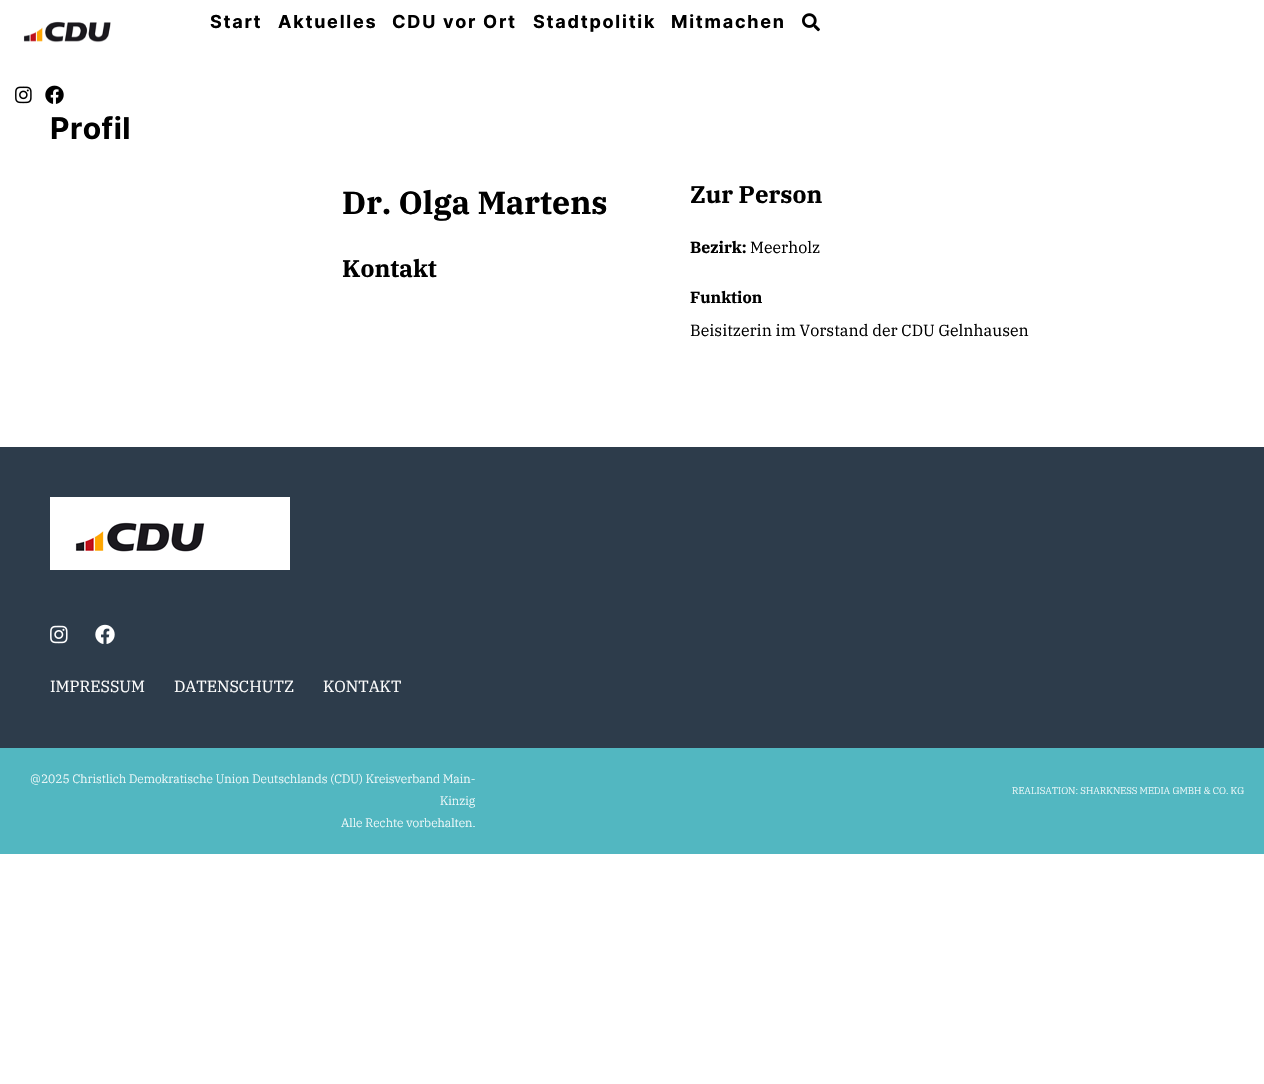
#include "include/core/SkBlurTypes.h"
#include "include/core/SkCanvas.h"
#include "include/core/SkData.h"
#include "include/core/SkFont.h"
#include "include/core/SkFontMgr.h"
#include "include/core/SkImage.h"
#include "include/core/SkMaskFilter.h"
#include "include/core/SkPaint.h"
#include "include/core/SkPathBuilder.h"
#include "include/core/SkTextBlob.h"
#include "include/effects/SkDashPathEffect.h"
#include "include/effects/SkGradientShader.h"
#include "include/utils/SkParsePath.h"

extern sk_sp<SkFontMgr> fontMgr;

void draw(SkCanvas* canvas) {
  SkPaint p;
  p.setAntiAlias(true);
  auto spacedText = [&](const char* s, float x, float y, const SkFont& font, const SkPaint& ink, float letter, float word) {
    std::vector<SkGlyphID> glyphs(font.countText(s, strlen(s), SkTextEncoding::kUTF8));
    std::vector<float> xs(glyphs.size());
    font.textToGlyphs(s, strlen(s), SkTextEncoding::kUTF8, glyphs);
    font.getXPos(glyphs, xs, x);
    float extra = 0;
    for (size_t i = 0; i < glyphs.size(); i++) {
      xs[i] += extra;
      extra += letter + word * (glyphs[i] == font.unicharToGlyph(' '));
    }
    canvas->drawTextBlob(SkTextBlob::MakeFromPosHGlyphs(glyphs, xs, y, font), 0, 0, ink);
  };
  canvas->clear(SK_ColorWHITE);
  canvas->drawImageRect(SkImages::DeferredFromEncodedData(SkData::MakeFromFileName("images/1.png")), SkRect::MakeLTRB(23, 21, 111, 43), SkSamplingOptions());
  canvas->drawImageRect(SkImages::DeferredFromEncodedData(SkData::MakeFromFileName("images/2.png")), SkRect::MakeLTRB(802, 13, 820, 32), SkSamplingOptions());
  canvas->drawImageRect(SkImages::DeferredFromEncodedData(SkData::MakeFromFileName("images/3.png")), SkRect::MakeLTRB(15, 86, 32, 104), SkSamplingOptions());
  canvas->drawImageRect(SkImages::DeferredFromEncodedData(SkData::MakeFromFileName("images/4.png")), SkRect::MakeLTRB(45, 85, 64, 104), SkSamplingOptions());
  p.setColor(SkColorSetRGB(45, 60, 75));
  canvas->drawRect(SkRect::MakeLTRB(0, 447, 1264, 748), p);
  p.setColor(SK_ColorWHITE);
  canvas->drawRect(SkRect::MakeLTRB(50, 497, 290, 570), p);
  canvas->drawImageRect(SkImages::DeferredFromEncodedData(SkData::MakeFromFileName("images/5.png")), SkRect::MakeLTRB(75, 522, 205, 552), SkSamplingOptions());
  canvas->drawImageRect(SkImages::DeferredFromEncodedData(SkData::MakeFromFileName("images/6.png")), SkRect::MakeLTRB(50, 625, 68, 644), SkSamplingOptions());
  canvas->drawImageRect(SkImages::DeferredFromEncodedData(SkData::MakeFromFileName("images/7.png")), SkRect::MakeLTRB(95, 624, 115, 644), SkSamplingOptions());
  p.setColor(SkColorSetRGB(82, 183, 193));
  canvas->drawRect(SkRect::MakeLTRB(0, 748, 1264, 854), p);
  SkFont font1(fontMgr->matchFamilyStyle("Inter", SkFontStyle::Bold()), 18);
  font1.setSubpixel(true);
  p.setColor(SK_ColorBLACK);
  spacedText("Start", 210, 28, font1, p, 1.75f, 0);
  spacedText("Aktuelles", 278, 28, font1, p, 1.75f, 0);
  spacedText("CDU vor Ort", 392, 28, font1, p, 1.75f, 0);
  spacedText("Stadtpolitik", 533, 28, font1, p, 1.75f, 0);
  spacedText("Mitmachen", 671, 28, font1, p, 1.75f, 0);
  SkFont font2(fontMgr->matchFamilyStyle("Inter", SkFontStyle::Bold()), 30);
  font2.setSubpixel(true);
  spacedText("Profil", 50, 139, font2, p, 0.5f, 0);
  SkFont font3(fontMgr->matchFamilyStyle("IBM Plex Serif", SkFontStyle::Bold()), 32);
  font3.setSubpixel(true);
  canvas->drawString("Dr. Olga Martens", 342, 214, font3, p);
  SkFont font4(fontMgr->matchFamilyStyle("IBM Plex Serif", SkFontStyle::Bold()), 24);
  font4.setSubpixel(true);
  canvas->drawString("Kontakt", 342, 277, font4, p);
  canvas->drawString("Zur Person", 690, 203, font4, p);
  SkFont font5(fontMgr->matchFamilyStyle("IBM Plex Serif", SkFontStyle::Bold()), 16);
  font5.setSubpixel(true);
  canvas->drawString("Bezirk:", 690, 253, font5, p);
  SkFont font6(fontMgr->matchFamilyStyle("IBM Plex Serif", SkFontStyle::Normal()), 16);
  font6.setSubpixel(true);
  canvas->drawString("Meerholz", 750, 253, font6, p);
  canvas->drawString("Funktion", 690, 303, font5, p);
  canvas->drawString("Beisitzerin im Vorstand der CDU Gelnhausen", 690, 336, font6, p);
  p.setColor(SK_ColorWHITE);
  canvas->drawString("IMPRESSUM", 50, 692, font6, p);
  canvas->drawString("DATENSCHUTZ", 174, 692, font6, p);
  canvas->drawString("KONTAKT", 323, 692, font6, p);
  SkFont font7(fontMgr->matchFamilyStyle("IBM Plex Serif", SkFontStyle(300, SkFontStyle::kNormal_Width, SkFontStyle::kUpright_Slant)), 12);
  font7.setSubpixel(true);
  canvas->drawString("@2025 Christlich Demokratische Union Deutschlands (CDU) Kreisverband Main-", 30, 783, font7, p);
  canvas->drawString("Kinzig", 440, 805, font7, p);
  canvas->drawString("Alle Rechte vorbehalten.", 341, 827, font7, p);
  SkFont font8(fontMgr->matchFamilyStyle("IBM Plex Serif", SkFontStyle(300, SkFontStyle::kNormal_Width, SkFontStyle::kUpright_Slant)), 9.6f);
  font8.setSubpixel(true);
  canvas->drawString("REALISATION: SHARKNESS MEDIA GMBH & CO. KG", 1012, 794, font8, p);
}
